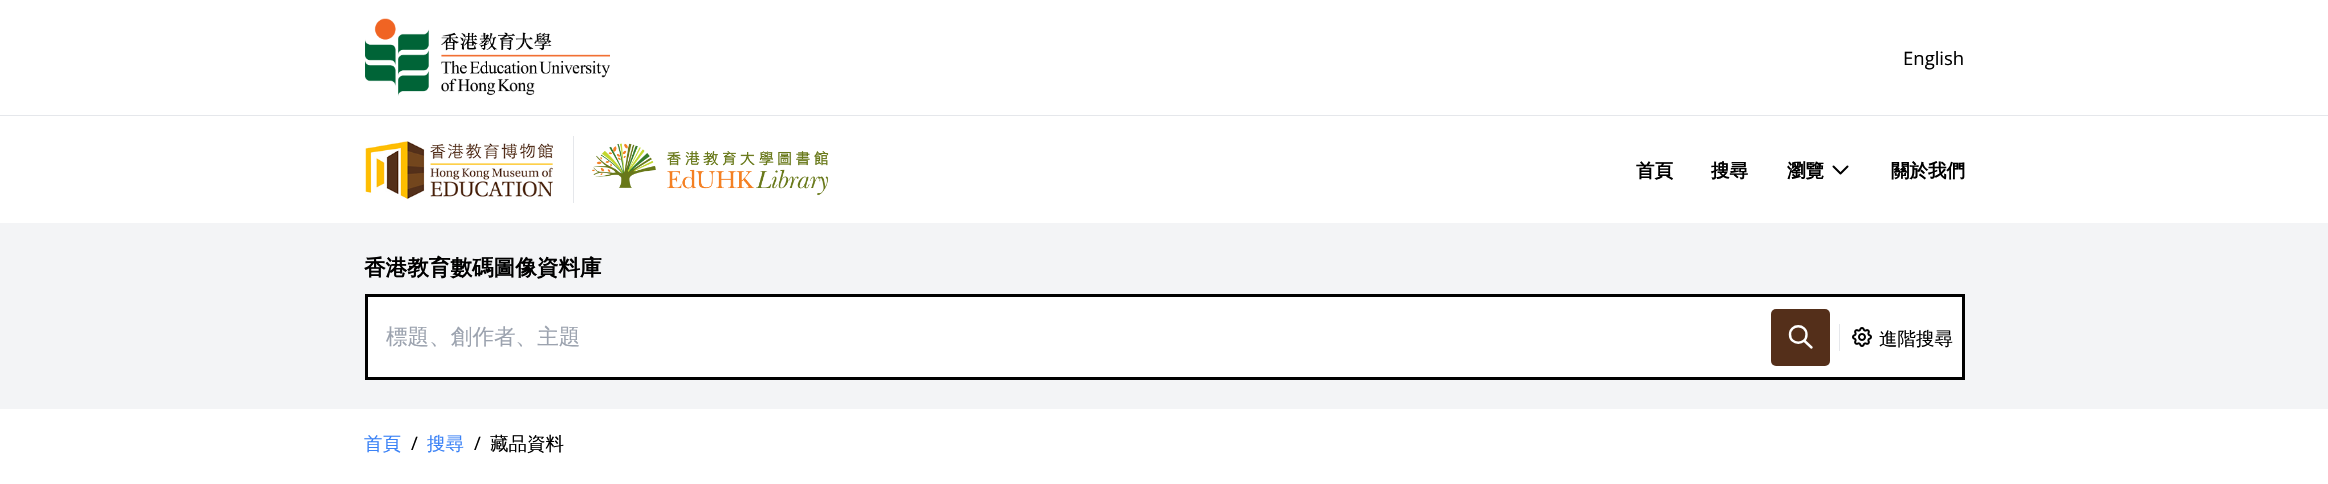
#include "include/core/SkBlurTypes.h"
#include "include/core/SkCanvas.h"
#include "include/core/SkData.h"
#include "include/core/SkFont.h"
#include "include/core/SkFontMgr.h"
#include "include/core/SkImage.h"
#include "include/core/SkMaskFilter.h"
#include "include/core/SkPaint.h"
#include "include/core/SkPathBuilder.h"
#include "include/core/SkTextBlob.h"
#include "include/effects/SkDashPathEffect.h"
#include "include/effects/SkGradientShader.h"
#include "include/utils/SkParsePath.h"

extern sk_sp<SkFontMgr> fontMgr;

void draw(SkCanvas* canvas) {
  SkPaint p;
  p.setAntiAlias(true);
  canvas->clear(SK_ColorWHITE);
  p.setColor(SkColorSetRGB(229, 231, 235));
  canvas->drawRect(SkRect::MakeLTRB(0, 115, 2328, 116), p);
  canvas->drawImageRect(SkImages::DeferredFromEncodedData(SkData::MakeFromFileName("images/1.png")), SkRect::MakeLTRB(365, 18, 610, 96), SkSamplingOptions());
  canvas->drawImageRect(SkImages::DeferredFromEncodedData(SkData::MakeFromFileName("images/2.png")), SkRect::MakeLTRB(365, 141, 553, 200), SkSamplingOptions());
  canvas->drawRect(SkRect::MakeLTRB(573, 136, 574, 203), p);
  canvas->drawImageRect(SkImages::DeferredFromEncodedData(SkData::MakeFromFileName("images/3.png")), SkRect::MakeLTRB(592, 143, 829, 196), SkSamplingOptions());
  p.setStyle(SkPaint::kStroke_Style);
  p.setStrokeWidth(2);
  p.setStrokeCap(SkPaint::kRound_Cap);
  p.setStrokeJoin(SkPaint::kRound_Join);
  p.setColor(SK_ColorBLACK);
  canvas->drawPath(SkPathBuilder().moveTo(1847.5f, 166.5f).lineTo(1840.5f, 173.5f).lineTo(1833.5f, 166.5f).detach(), p);
  p.setStyle(SkPaint::kFill_Style);
  p.setColor(SkColorSetRGB(243, 244, 246));
  canvas->drawRect(SkRect::MakeLTRB(0, 223, 2328, 409), p);
  p.setColor(SK_ColorWHITE);
  canvas->drawRect(SkRect::MakeLTRB(366.5f, 295.5f, 1963.5f, 378.5f), p);
  p.setStyle(SkPaint::kStroke_Style);
  p.setStrokeWidth(3);
  p.setStrokeCap(SkPaint::kButt_Cap);
  p.setStrokeJoin(SkPaint::kMiter_Join);
  p.setColor(SK_ColorBLACK);
  canvas->drawRect(SkRect::MakeLTRB(366.5f, 295.5f, 1963.5f, 378.5f), p);
  p.setStyle(SkPaint::kFill_Style);
  p.setColor(SkColorSetRGB(84, 47, 26));
  canvas->drawRoundRect(SkRect::MakeLTRB(1771, 309, 1830, 366), 5, 5, p);
  p.setStyle(SkPaint::kStroke_Style);
  p.setStrokeWidth(2.4f);
  p.setStrokeCap(SkPaint::kRound_Cap);
  p.setStrokeJoin(SkPaint::kRound_Join);
  p.setColor(SK_ColorWHITE);
  canvas->drawPath(SkPathBuilder().moveTo(1811.5f, 347.5f).lineTo(1804, 340.5f).moveTo(1806.5f, 334.5f).cubicTo(1806.5f, 345.5f, 1790, 345.5f, 1790, 334.5f).cubicTo(1790, 323.5f, 1806.5f, 323.5f, 1806.5f, 334.5f).close().detach(), p);
  p.setStyle(SkPaint::kFill_Style);
  p.setColor(SkColorSetRGB(229, 231, 235));
  canvas->drawRect(SkRect::MakeLTRB(1839, 324, 1840, 351), p);
  canvas->drawImageRect(SkImages::DeferredFromEncodedData(SkData::MakeFromFileName("images/4.png")), SkRect::MakeLTRB(1852, 327, 1872, 347), SkSamplingOptions());
  SkFont font1(fontMgr->matchFamilyStyle("Open Sans", SkFontStyle::Normal()), 18.5f);
  font1.setSubpixel(true);
  p.setColor(SK_ColorBLACK);
  canvas->drawString("English", 1903, 65, font1, p);
  SkFont font2(fontMgr->matchFamilyStyle("WenQuanYi Zen Hei", SkFontStyle::Bold()), 18.5f);
  font2.setSubpixel(true);
  canvas->drawString("首頁", 1636, 177, font2, p);
  canvas->drawString("搜尋", 1711, 177, font2, p);
  canvas->drawString("瀏覽", 1787, 177, font2, p);
  canvas->drawString("關於我們", 1891, 177, font2, p);
  SkFont font3(fontMgr->matchFamilyStyle("WenQuanYi Zen Hei", SkFontStyle::Bold()), 21.6f);
  font3.setSubpixel(true);
  canvas->drawString("香港教育數碼圖像資料庫", 364, 275, font3, p);
  SkFont font4(fontMgr->matchFamilyStyle("WenQuanYi Zen Hei", SkFontStyle(500, SkFontStyle::kNormal_Width, SkFontStyle::kUpright_Slant)), 21.6f);
  font4.setSubpixel(true);
  p.setColor(SkColorSetRGB(156, 163, 175));
  canvas->drawString("標題、創作者、主題", 386, 344, font4, p);
  SkFont font5(fontMgr->matchFamilyStyle("WenQuanYi Zen Hei", SkFontStyle(500, SkFontStyle::kNormal_Width, SkFontStyle::kUpright_Slant)), 18.5f);
  font5.setSubpixel(true);
  p.setColor(SK_ColorBLACK);
  canvas->drawString("進階搜尋", 1879, 345, font5, p);
  p.setColor(SkColorSetRGB(59, 130, 246));
  canvas->drawString("首頁", 364, 450, font5, p);
  p.setColor(SK_ColorBLACK);
  canvas->drawString("/", 411, 450, font1, p);
  p.setColor(SkColorSetRGB(59, 130, 246));
  canvas->drawString("搜尋", 427, 450, font5, p);
  p.setColor(SK_ColorBLACK);
  canvas->drawString("/", 474, 450, font1, p);
  canvas->drawString("藏品資料", 490, 450, font5, p);
}
